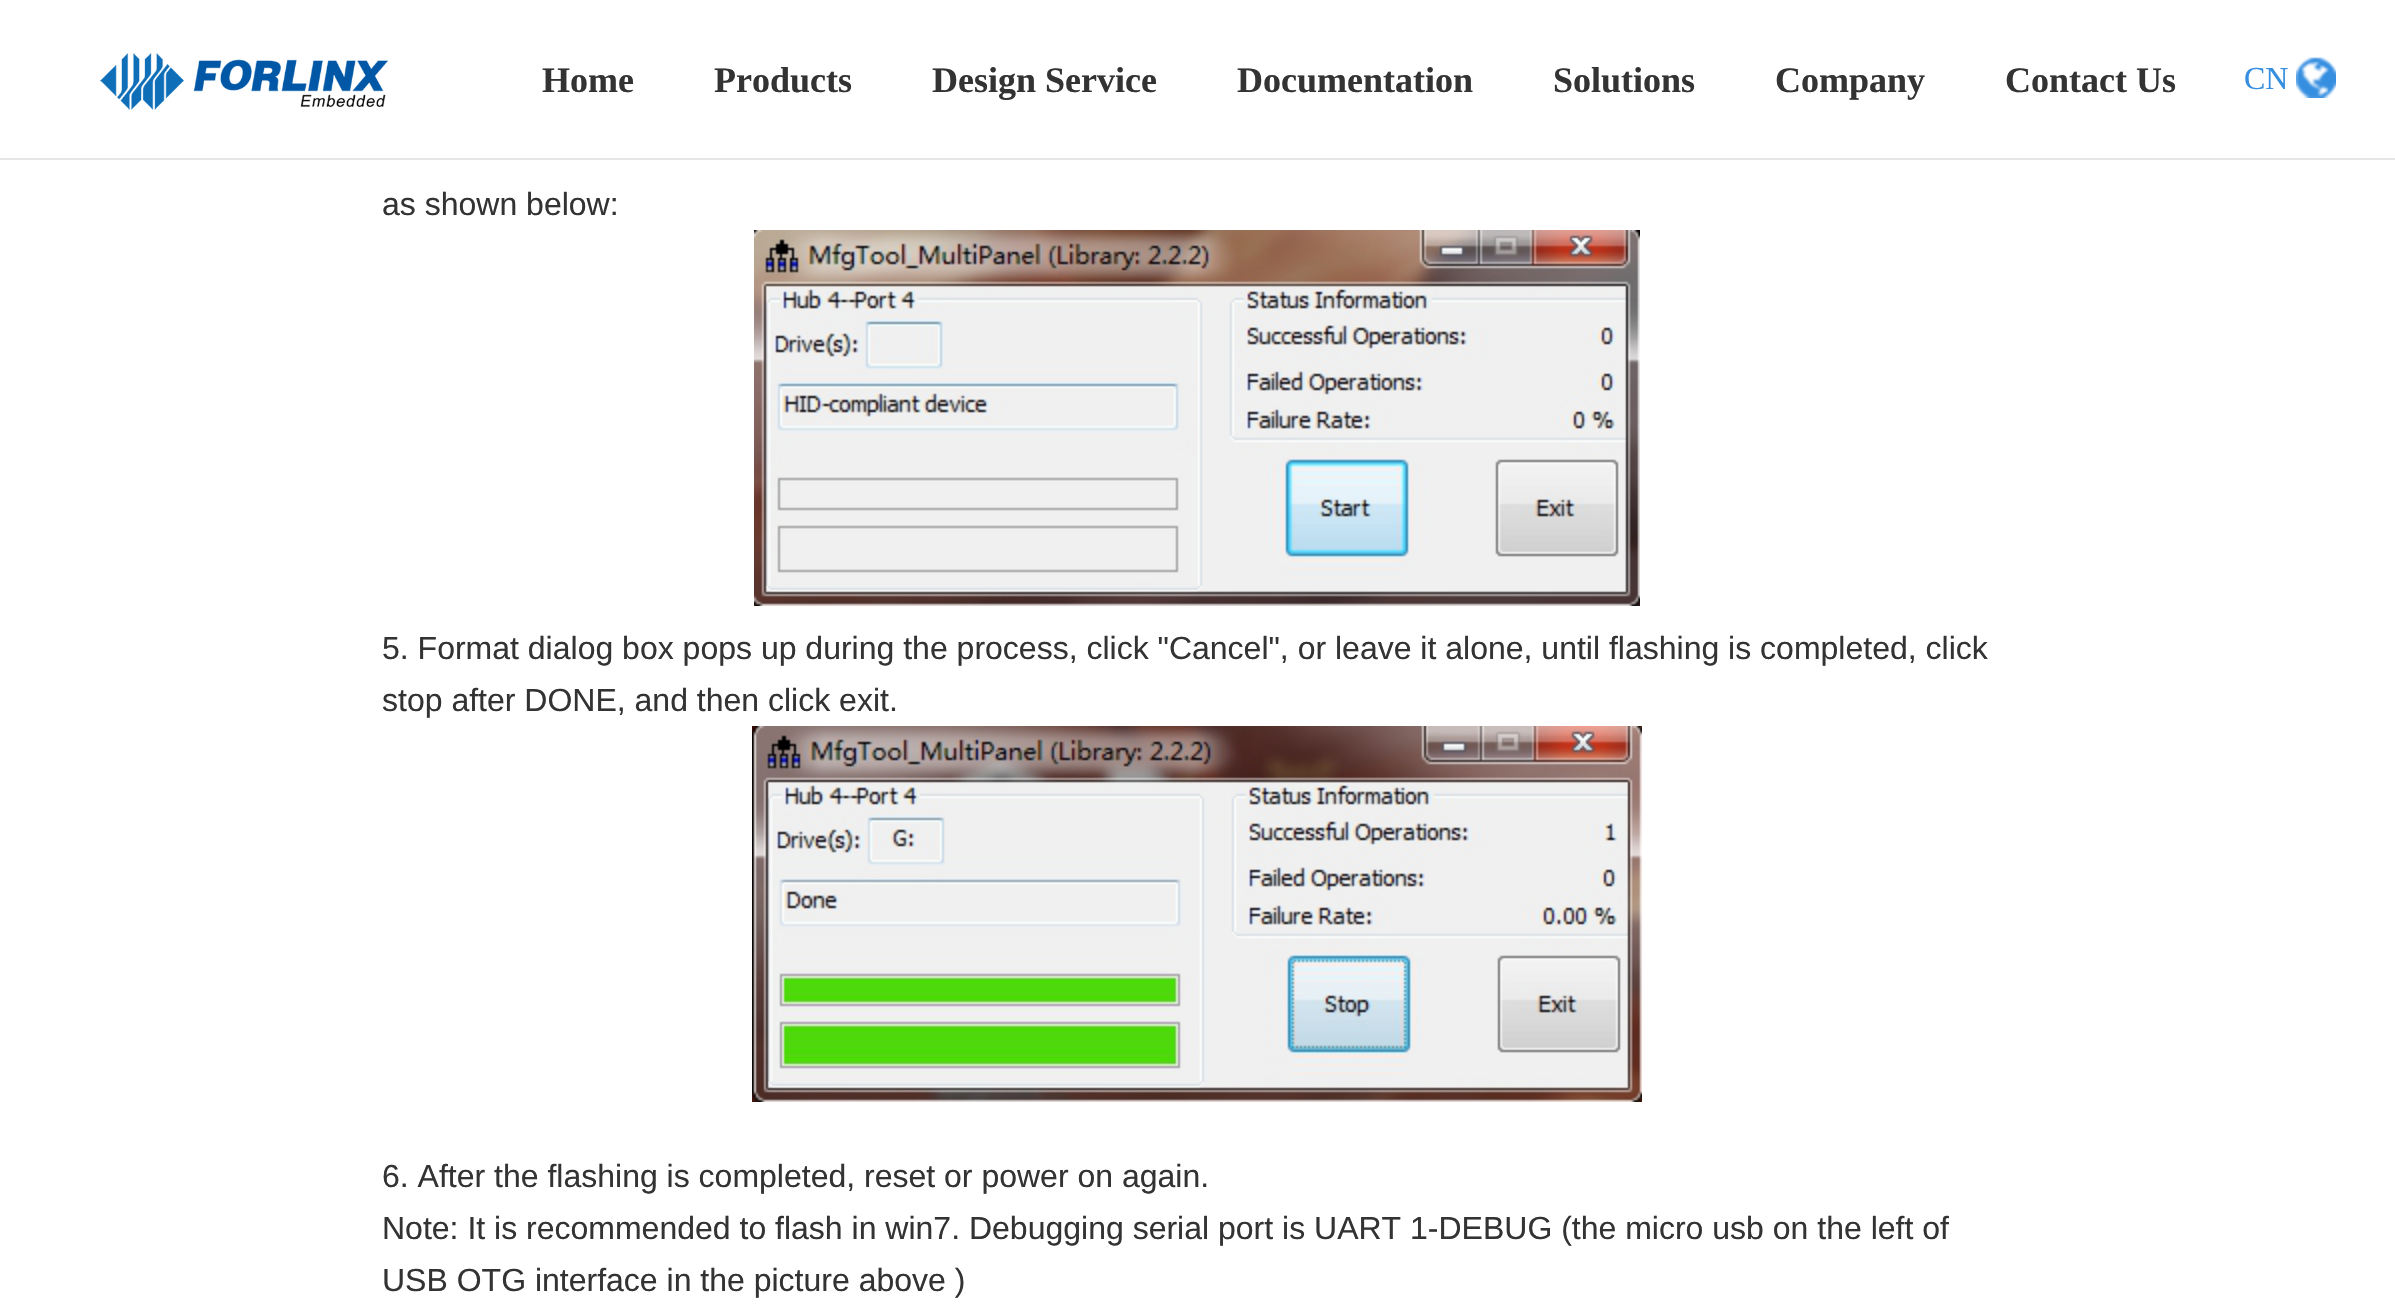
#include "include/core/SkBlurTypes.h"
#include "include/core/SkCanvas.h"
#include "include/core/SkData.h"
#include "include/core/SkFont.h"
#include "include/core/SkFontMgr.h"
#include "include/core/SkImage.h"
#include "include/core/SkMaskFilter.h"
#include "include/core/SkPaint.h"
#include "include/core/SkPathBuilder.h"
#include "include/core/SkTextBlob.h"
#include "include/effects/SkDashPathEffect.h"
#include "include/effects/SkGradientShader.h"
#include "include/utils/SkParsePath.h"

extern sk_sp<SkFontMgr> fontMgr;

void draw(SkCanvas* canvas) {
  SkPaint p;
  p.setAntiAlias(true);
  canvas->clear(SK_ColorWHITE);
  p.setColor(SkColorSetRGB(229, 229, 229));
  canvas->drawRect(SkRect::MakeLTRB(0, 158, 2395, 160), p);
  canvas->drawImageRect(SkImages::DeferredFromEncodedData(SkData::MakeFromFileName("images/1.png")), SkRect::MakeLTRB(100, 53, 388, 110), SkSamplingOptions());
  canvas->drawImageRect(SkImages::DeferredFromEncodedData(SkData::MakeFromFileName("images/2.png")), SkRect::MakeLTRB(2296, 57, 2336, 98), SkSamplingOptions());
  canvas->drawImageRect(SkImages::DeferredFromEncodedData(SkData::MakeFromFileName("images/3.png")), SkRect::MakeLTRB(754, 230, 1640, 606), SkSamplingOptions());
  canvas->drawImageRect(SkImages::DeferredFromEncodedData(SkData::MakeFromFileName("images/4.png")), SkRect::MakeLTRB(752, 726, 1642, 1102), SkSamplingOptions());
  SkFont font1(fontMgr->matchFamilyStyle("Liberation Serif", SkFontStyle::Bold()), 36);
  font1.setSubpixel(true);
  p.setColor(SkColorSetRGB(51, 51, 51));
  canvas->drawString("Home", 542, 92, font1, p);
  canvas->drawString("Products", 714, 92, font1, p);
  canvas->drawString("Design Service", 932, 92, font1, p);
  canvas->drawString("Documentation", 1237, 92, font1, p);
  canvas->drawString("Solutions", 1553, 92, font1, p);
  canvas->drawString("Company", 1775, 92, font1, p);
  canvas->drawString("Contact Us", 2005, 92, font1, p);
  SkFont font2(fontMgr->matchFamilyStyle("Liberation Serif", SkFontStyle::Normal()), 32);
  font2.setSubpixel(true);
  p.setColor(SkColorSetRGB(54, 142, 224));
  canvas->drawString("CN", 2244, 89, font2, p);
  SkFont font3(fontMgr->matchFamilyStyle("Liberation Sans", SkFontStyle::Normal()), 32);
  font3.setSubpixel(true);
  p.setColor(SkColorSetRGB(51, 51, 51));
  canvas->drawString("as shown below:", 382, 215, font3, p);
  canvas->drawString("5. Format dialog box pops up during the process, click \"Cancel\", or leave it alone, until flashing is completed, click", 382, 659, font3, p);
  canvas->drawString("stop after DONE, and then click exit.", 382, 711, font3, p);
  canvas->drawString("6. After the flashing is completed, reset or power on again.", 382, 1187, font3, p);
  canvas->drawString("Note: It is recommended to flash in win7. Debugging serial port is UART 1-DEBUG (the micro usb on the left of", 382, 1239, font3, p);
  canvas->drawString("USB OTG interface in the picture above )", 382, 1291, font3, p);
}
